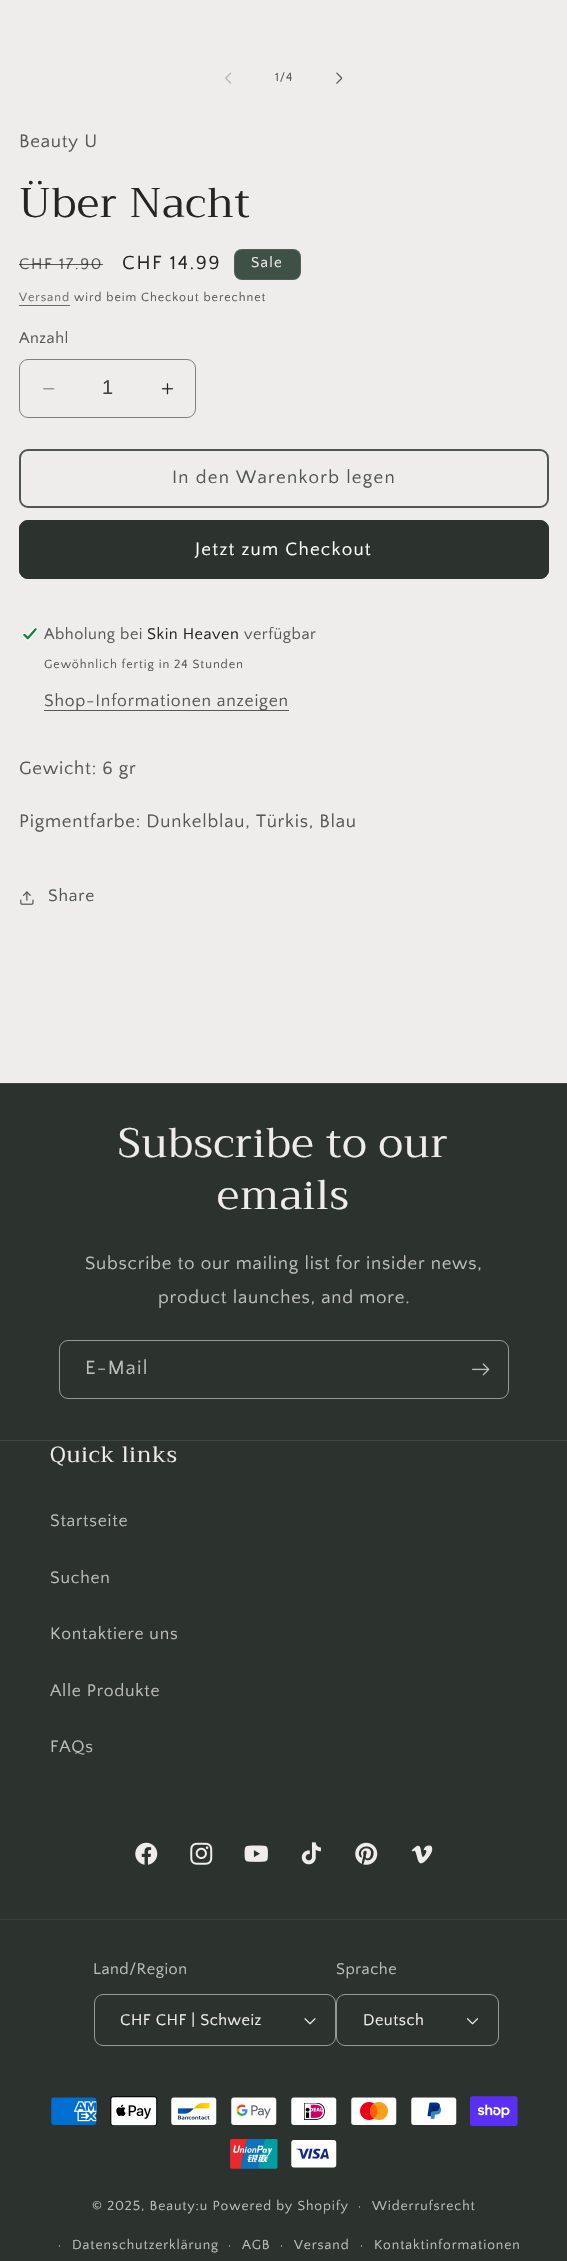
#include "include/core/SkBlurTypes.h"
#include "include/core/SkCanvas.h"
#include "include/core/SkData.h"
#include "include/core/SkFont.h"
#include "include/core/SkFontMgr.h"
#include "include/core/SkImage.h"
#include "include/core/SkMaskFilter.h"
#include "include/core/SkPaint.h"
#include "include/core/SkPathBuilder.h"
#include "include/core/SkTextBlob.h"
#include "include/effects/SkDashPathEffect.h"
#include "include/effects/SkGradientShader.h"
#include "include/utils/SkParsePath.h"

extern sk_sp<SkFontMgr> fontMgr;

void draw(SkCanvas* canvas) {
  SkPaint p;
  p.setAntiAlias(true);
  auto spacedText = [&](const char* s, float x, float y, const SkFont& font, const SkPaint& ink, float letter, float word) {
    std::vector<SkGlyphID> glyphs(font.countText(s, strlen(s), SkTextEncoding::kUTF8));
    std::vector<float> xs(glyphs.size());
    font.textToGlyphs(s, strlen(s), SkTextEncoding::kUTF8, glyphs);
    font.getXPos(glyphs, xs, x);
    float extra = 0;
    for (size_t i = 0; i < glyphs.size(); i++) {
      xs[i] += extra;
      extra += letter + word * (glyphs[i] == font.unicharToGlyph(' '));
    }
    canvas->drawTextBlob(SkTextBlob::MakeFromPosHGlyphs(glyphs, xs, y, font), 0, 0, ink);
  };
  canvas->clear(SkColorSetRGB(239, 236, 236));
  canvas->drawImageRect(SkImages::DeferredFromEncodedData(SkData::MakeFromFileName("images/1.png")), SkRect::MakeLTRB(225, 72, 232, 84), SkSamplingOptions());
  canvas->drawImageRect(SkImages::DeferredFromEncodedData(SkData::MakeFromFileName("images/2.png")), SkRect::MakeLTRB(336, 72, 343, 84), SkSamplingOptions());
  p.setColor(SkColorSetRGB(63, 81, 71));
  canvas->drawRoundRect(SkRect::MakeLTRB(234, 249, 301, 280), 8, 8, p);
  p.setStyle(SkPaint::kStroke_Style);
  p.setStrokeWidth(1);
  p.setColor(SkColorSetARGB(26, 239, 236, 236));
  canvas->drawRoundRect(SkRect::MakeLTRB(234.5f, 249.5f, 300.5f, 279.5f), 7.5f, 7.5f, p);
  p.setStyle(SkPaint::kFill_Style);
  p.setColor(SkColorSetRGB(104, 109, 108));
  canvas->drawRect(SkRect::MakeLTRB(19, 305, 70, 306), p);
  canvas->drawImageRect(SkImages::DeferredFromEncodedData(SkData::MakeFromFileName("images/3.png")), SkRect::MakeLTRB(43, 388, 55, 390), SkSamplingOptions());
  canvas->drawImageRect(SkImages::DeferredFromEncodedData(SkData::MakeFromFileName("images/4.png")), SkRect::MakeLTRB(161, 383, 174, 395), SkSamplingOptions());
  p.setStyle(SkPaint::kStroke_Style);
  p.setColor(SkColorSetRGB(128, 127, 127));
  canvas->drawRoundRect(SkRect::MakeLTRB(19.5f, 359.5f, 195.5f, 417.5f), 8.5f, 8.5f, p);
  p.setStrokeWidth(2);
  p.setColor(SkColorSetRGB(80, 86, 85));
  canvas->drawRoundRect(SkRect::MakeLTRB(20, 450, 548, 507), 8, 8, p);
  p.setStyle(SkPaint::kFill_Style);
  p.setColor(SkColorSetRGB(44, 51, 47));
  canvas->drawRoundRect(SkRect::MakeLTRB(19, 520, 549, 579), 9, 9, p);
  p.setStyle(SkPaint::kStroke_Style);
  p.setStrokeWidth(1);
  canvas->drawRoundRect(SkRect::MakeLTRB(19.5f, 520.5f, 548.5f, 578.5f), 8.5f, 8.5f, p);
  canvas->drawImageRect(SkImages::DeferredFromEncodedData(SkData::MakeFromFileName("images/5.png")), SkRect::MakeLTRB(22, 627, 38, 641), SkSamplingOptions());
  p.setStyle(SkPaint::kFill_Style);
  p.setColor(SkColorSetRGB(88, 87, 87));
  canvas->drawRect(SkRect::MakeLTRB(44, 710, 289, 711), p);
  canvas->drawImageRect(SkImages::DeferredFromEncodedData(SkData::MakeFromFileName("images/6.png")), SkRect::MakeLTRB(20, 891, 34, 905), SkSamplingOptions());
  p.setColor(SkColorSetRGB(44, 51, 47));
  canvas->drawRect(SkRect::MakeLTRB(0, 1084, 567, 1440), p);
  p.setColor(SkColorSetRGB(64, 70, 66));
  canvas->drawRect(SkRect::MakeLTRB(0, 1083, 567, 1084), p);
  canvas->drawRect(SkRect::MakeLTRB(0, 1440, 567, 1441), p);
  p.setStyle(SkPaint::kStroke_Style);
  p.setColor(SkColorSetRGB(151, 153, 151));
  canvas->drawRoundRect(SkRect::MakeLTRB(59.5f, 1340.5f, 508.5f, 1398.5f), 8.5f, 8.5f, p);
  canvas->drawImageRect(SkImages::DeferredFromEncodedData(SkData::MakeFromFileName("images/7.png")), SkRect::MakeLTRB(472, 1363, 490, 1376), SkSamplingOptions());
  p.setStyle(SkPaint::kFill_Style);
  p.setColor(SkColorSetRGB(44, 51, 47));
  canvas->drawRect(SkRect::MakeLTRB(0, 1441, 567, 2261), p);
  canvas->drawImageRect(SkImages::DeferredFromEncodedData(SkData::MakeFromFileName("images/8.png")), SkRect::MakeLTRB(135, 1842, 158, 1865), SkSamplingOptions());
  canvas->drawImageRect(SkImages::DeferredFromEncodedData(SkData::MakeFromFileName("images/9.png")), SkRect::MakeLTRB(190, 1842, 213, 1865), SkSamplingOptions());
  canvas->drawImageRect(SkImages::DeferredFromEncodedData(SkData::MakeFromFileName("images/10.png")), SkRect::MakeLTRB(244, 1845, 268, 1862), SkSamplingOptions());
  canvas->drawImageRect(SkImages::DeferredFromEncodedData(SkData::MakeFromFileName("images/11.png")), SkRect::MakeLTRB(301, 1842, 321, 1865), SkSamplingOptions());
  canvas->drawImageRect(SkImages::DeferredFromEncodedData(SkData::MakeFromFileName("images/12.png")), SkRect::MakeLTRB(355, 1842, 378, 1865), SkSamplingOptions());
  canvas->drawImageRect(SkImages::DeferredFromEncodedData(SkData::MakeFromFileName("images/13.png")), SkRect::MakeLTRB(411, 1845, 433, 1864), SkSamplingOptions());
  p.setColor(SkColorSetRGB(60, 66, 62));
  canvas->drawRect(SkRect::MakeLTRB(0, 1919, 567, 1920), p);
  canvas->drawImageRect(SkImages::DeferredFromEncodedData(SkData::MakeFromFileName("images/14.png")), SkRect::MakeLTRB(304, 2018, 316, 2025), SkSamplingOptions());
  p.setStyle(SkPaint::kStroke_Style);
  p.setColor(SkColorSetRGB(151, 153, 151));
  canvas->drawRoundRect(SkRect::MakeLTRB(94.5f, 1994.5f, 335.5f, 2045.5f), 8.5f, 8.5f, p);
  canvas->drawImageRect(SkImages::DeferredFromEncodedData(SkData::MakeFromFileName("images/15.png")), SkRect::MakeLTRB(466, 2018, 479, 2025), SkSamplingOptions());
  canvas->drawRoundRect(SkRect::MakeLTRB(336.5f, 1994.5f, 498.5f, 2045.5f), 8.5f, 8.5f, p);
  canvas->drawImageRect(SkImages::DeferredFromEncodedData(SkData::MakeFromFileName("images/16.png")), SkRect::MakeLTRB(51, 2097, 97, 2125), SkSamplingOptions());
  canvas->drawImageRect(SkImages::DeferredFromEncodedData(SkData::MakeFromFileName("images/17.png")), SkRect::MakeLTRB(110, 2096, 158, 2126), SkSamplingOptions());
  canvas->drawImageRect(SkImages::DeferredFromEncodedData(SkData::MakeFromFileName("images/18.png")), SkRect::MakeLTRB(171, 2097, 217, 2125), SkSamplingOptions());
  canvas->drawImageRect(SkImages::DeferredFromEncodedData(SkData::MakeFromFileName("images/19.png")), SkRect::MakeLTRB(231, 2097, 277, 2125), SkSamplingOptions());
  canvas->drawImageRect(SkImages::DeferredFromEncodedData(SkData::MakeFromFileName("images/20.png")), SkRect::MakeLTRB(291, 2097, 337, 2125), SkSamplingOptions());
  canvas->drawImageRect(SkImages::DeferredFromEncodedData(SkData::MakeFromFileName("images/21.png")), SkRect::MakeLTRB(351, 2097, 397, 2125), SkSamplingOptions());
  canvas->drawImageRect(SkImages::DeferredFromEncodedData(SkData::MakeFromFileName("images/22.png")), SkRect::MakeLTRB(411, 2097, 457, 2125), SkSamplingOptions());
  canvas->drawImageRect(SkImages::DeferredFromEncodedData(SkData::MakeFromFileName("images/23.png")), SkRect::MakeLTRB(470, 2096, 518, 2126), SkSamplingOptions());
  canvas->drawImageRect(SkImages::DeferredFromEncodedData(SkData::MakeFromFileName("images/24.png")), SkRect::MakeLTRB(230, 2139, 278, 2169), SkSamplingOptions());
  canvas->drawImageRect(SkImages::DeferredFromEncodedData(SkData::MakeFromFileName("images/25.png")), SkRect::MakeLTRB(291, 2140, 337, 2168), SkSamplingOptions());
  SkFont font1(fontMgr->matchFamilyStyle("Quattrocento Sans", SkFontStyle::Normal()), 12.5f);
  font1.setSubpixel(true);
  p.setStyle(SkPaint::kFill_Style);
  p.setColor(SkColorSetRGB(88, 87, 87));
  spacedText("1/4", 275, 81, font1, p, 0.9f, 0);
  SkFont font2(fontMgr->matchFamilyStyle("Quattrocento Sans", SkFontStyle::Normal()), 18.75f);
  font2.setSubpixel(true);
  spacedText("Beauty U", 19, 147, font2, p, 0.75f, 0);
  SkFont font3(fontMgr->matchFamilyStyle("Trirong", SkFontStyle::Normal()), 41.25f);
  font3.setSubpixel(true);
  p.setColor(SkColorSetRGB(37, 37, 37));
  spacedText("Über Nacht", 19, 217, font3, p, 0.8f, 0);
  SkFont font4(fontMgr->matchFamilyStyle("Quattrocento Sans", SkFontStyle::Normal()), 16.25f);
  font4.setSubpixel(true);
  p.setColor(SkColorSetRGB(88, 87, 87));
  spacedText("CHF 17.90", 19, 269, font4, p, 1.6f, 0);
  p.setColor(SkColorSetARGB(191, 37, 37, 37));
  canvas->drawRect(SkRect::MakeLTRB(19, 264, 103, 265), p);
  SkFont font5(fontMgr->matchFamilyStyle("Quattrocento Sans", SkFontStyle::Normal()), 20);
  font5.setSubpixel(true);
  p.setColor(SkColorSetRGB(37, 37, 37));
  spacedText("CHF 14.99", 122, 269, font5, p, 1.6f, 0);
  SkFont font6(fontMgr->matchFamilyStyle("Quattrocento Sans", SkFontStyle::Normal()), 15);
  font6.setSubpixel(true);
  p.setColor(SkColorSetRGB(239, 236, 236));
  spacedText("Sale", 251, 267, font6, p, 1.25f, 0);
  p.setColor(SkColorSetRGB(104, 109, 108));
  spacedText("Versand", 19, 301, font1, p, 0.9f, 0);
  p.setColor(SkColorSetRGB(88, 87, 87));
  spacedText("wird beim Checkout berechnet", 74, 301, font1, p, 0.9f, 0);
  spacedText("Anzahl", 19, 343, font4, p, 0.5f, 0);
  SkFont font7(fontMgr->matchFamilyStyle("Liberation Sans", SkFontStyle::Normal()), 20);
  font7.setSubpixel(true);
  p.setColor(SkColorSetRGB(67, 67, 67));
  canvas->drawString("1", 102, 394, font7, p);
  p.setColor(SkColorSetRGB(80, 86, 85));
  spacedText("In den Warenkorb legen", 172, 483, font2, p, 1.25f, 0);
  p.setColor(SK_ColorWHITE);
  spacedText("Jetzt zum Checkout", 195, 555, font2, p, 1.25f, 0);
  p.setColor(SkColorSetRGB(88, 87, 87));
  spacedText("Abholung bei", 44, 639, font4, p, 0.5f, 0);
  p.setColor(SkColorSetRGB(37, 37, 37));
  spacedText("Skin Heaven", 147, 639, font4, p, 0.5f, 0);
  p.setColor(SkColorSetRGB(88, 87, 87));
  spacedText("verfügbar", 244, 639, font4, p, 0.5f, 0);
  spacedText("Gewöhnlich fertig in 24 Stunden", 44, 668, font1, p, 0.9f, 0);
  SkFont font8(fontMgr->matchFamilyStyle("Quattrocento Sans", SkFontStyle::Normal()), 17.5f);
  font8.setSubpixel(true);
  spacedText("Shop-Informationen anzeigen", 44, 706, font8, p, 0.75f, 0);
  spacedText("Gewicht: 6 gr", 19, 774, font2, p, 0.75f, 0);
  spacedText("Pigmentfarbe: Dunkelblau, Türkis, Blau", 19, 827, font2, p, 0.75f, 0);
  p.setColor(SkColorSetRGB(80, 86, 85));
  spacedText("Share", 48, 901, font8, p, 0.75f, 0);
  p.setColor(SkColorSetRGB(239, 236, 236));
  spacedText("Subscribe to our", 118, 1157, font3, p, 0.8f, 0);
  spacedText("emails", 217, 1209, font3, p, 0.8f, 0);
  p.setColor(SkColorSetRGB(190, 190, 189));
  spacedText("Subscribe to our mailing list for insider news,", 85, 1269, font2, p, 0.75f, 0);
  spacedText("product launches, and more.", 158, 1303, font2, p, 0.75f, 0);
  spacedText("E-Mail", 85, 1374, font5, p, 1.25f, 0);
  SkFont font9(fontMgr->matchFamilyStyle("Trirong", SkFontStyle::Normal()), 22);
  font9.setSubpixel(true);
  p.setColor(SkColorSetRGB(239, 236, 236));
  spacedText("Quick links", 50, 1462, font9, p, 0.8f, 0);
  p.setColor(SkColorSetRGB(190, 190, 189));
  spacedText("Startseite", 50, 1526, font8, p, 0.75f, 0);
  spacedText("Suchen", 50, 1583, font8, p, 0.75f, 0);
  spacedText("Kontaktiere uns", 50, 1639, font8, p, 0.75f, 0);
  spacedText("Alle Produkte", 50, 1696, font8, p, 0.75f, 0);
  spacedText("FAQs", 50, 1752, font8, p, 0.75f, 0);
  spacedText("Land/Region", 93, 1974, font4, p, 0.5f, 0);
  p.setColor(SkColorSetRGB(239, 236, 236));
  spacedText("CHF CHF | Schweiz", 120, 2025, font4, p, 0.5f, 0);
  p.setColor(SkColorSetRGB(190, 190, 189));
  spacedText("Sprache", 336, 1974, font4, p, 0.5f, 0);
  p.setColor(SkColorSetRGB(239, 236, 236));
  spacedText("Deutsch", 363, 2025, font4, p, 0.5f, 0);
  p.setColor(SkColorSetRGB(190, 190, 189));
  spacedText("·", 358, 2210, font1, p, 0.9f, 0);
  SkFont font10(fontMgr->matchFamilyStyle("Quattrocento Sans", SkFontStyle::Normal()), 13.75f);
  font10.setSubpixel(true);
  spacedText("Widerrufsrecht", 372, 2210, font10, p, 0.9f, 0);
  spacedText("·", 58, 2249, font1, p, 0.9f, 0);
  spacedText("Datenschutzerklärung", 72, 2249, font10, p, 0.9f, 0);
  spacedText("·", 228, 2249, font1, p, 0.9f, 0);
  spacedText("AGB", 242, 2249, font10, p, 0.9f, 0);
  spacedText("·", 280, 2249, font1, p, 0.9f, 0);
  spacedText("Versand", 294, 2249, font10, p, 0.9f, 0);
  spacedText("·", 360, 2249, font1, p, 0.9f, 0);
  spacedText("Kontaktinformationen", 374, 2249, font10, p, 0.9f, 0);
  spacedText("© 2025, Beauty:u Powered by Shopify", 92, 2210, font10, p, 0.9f, 0);
}
